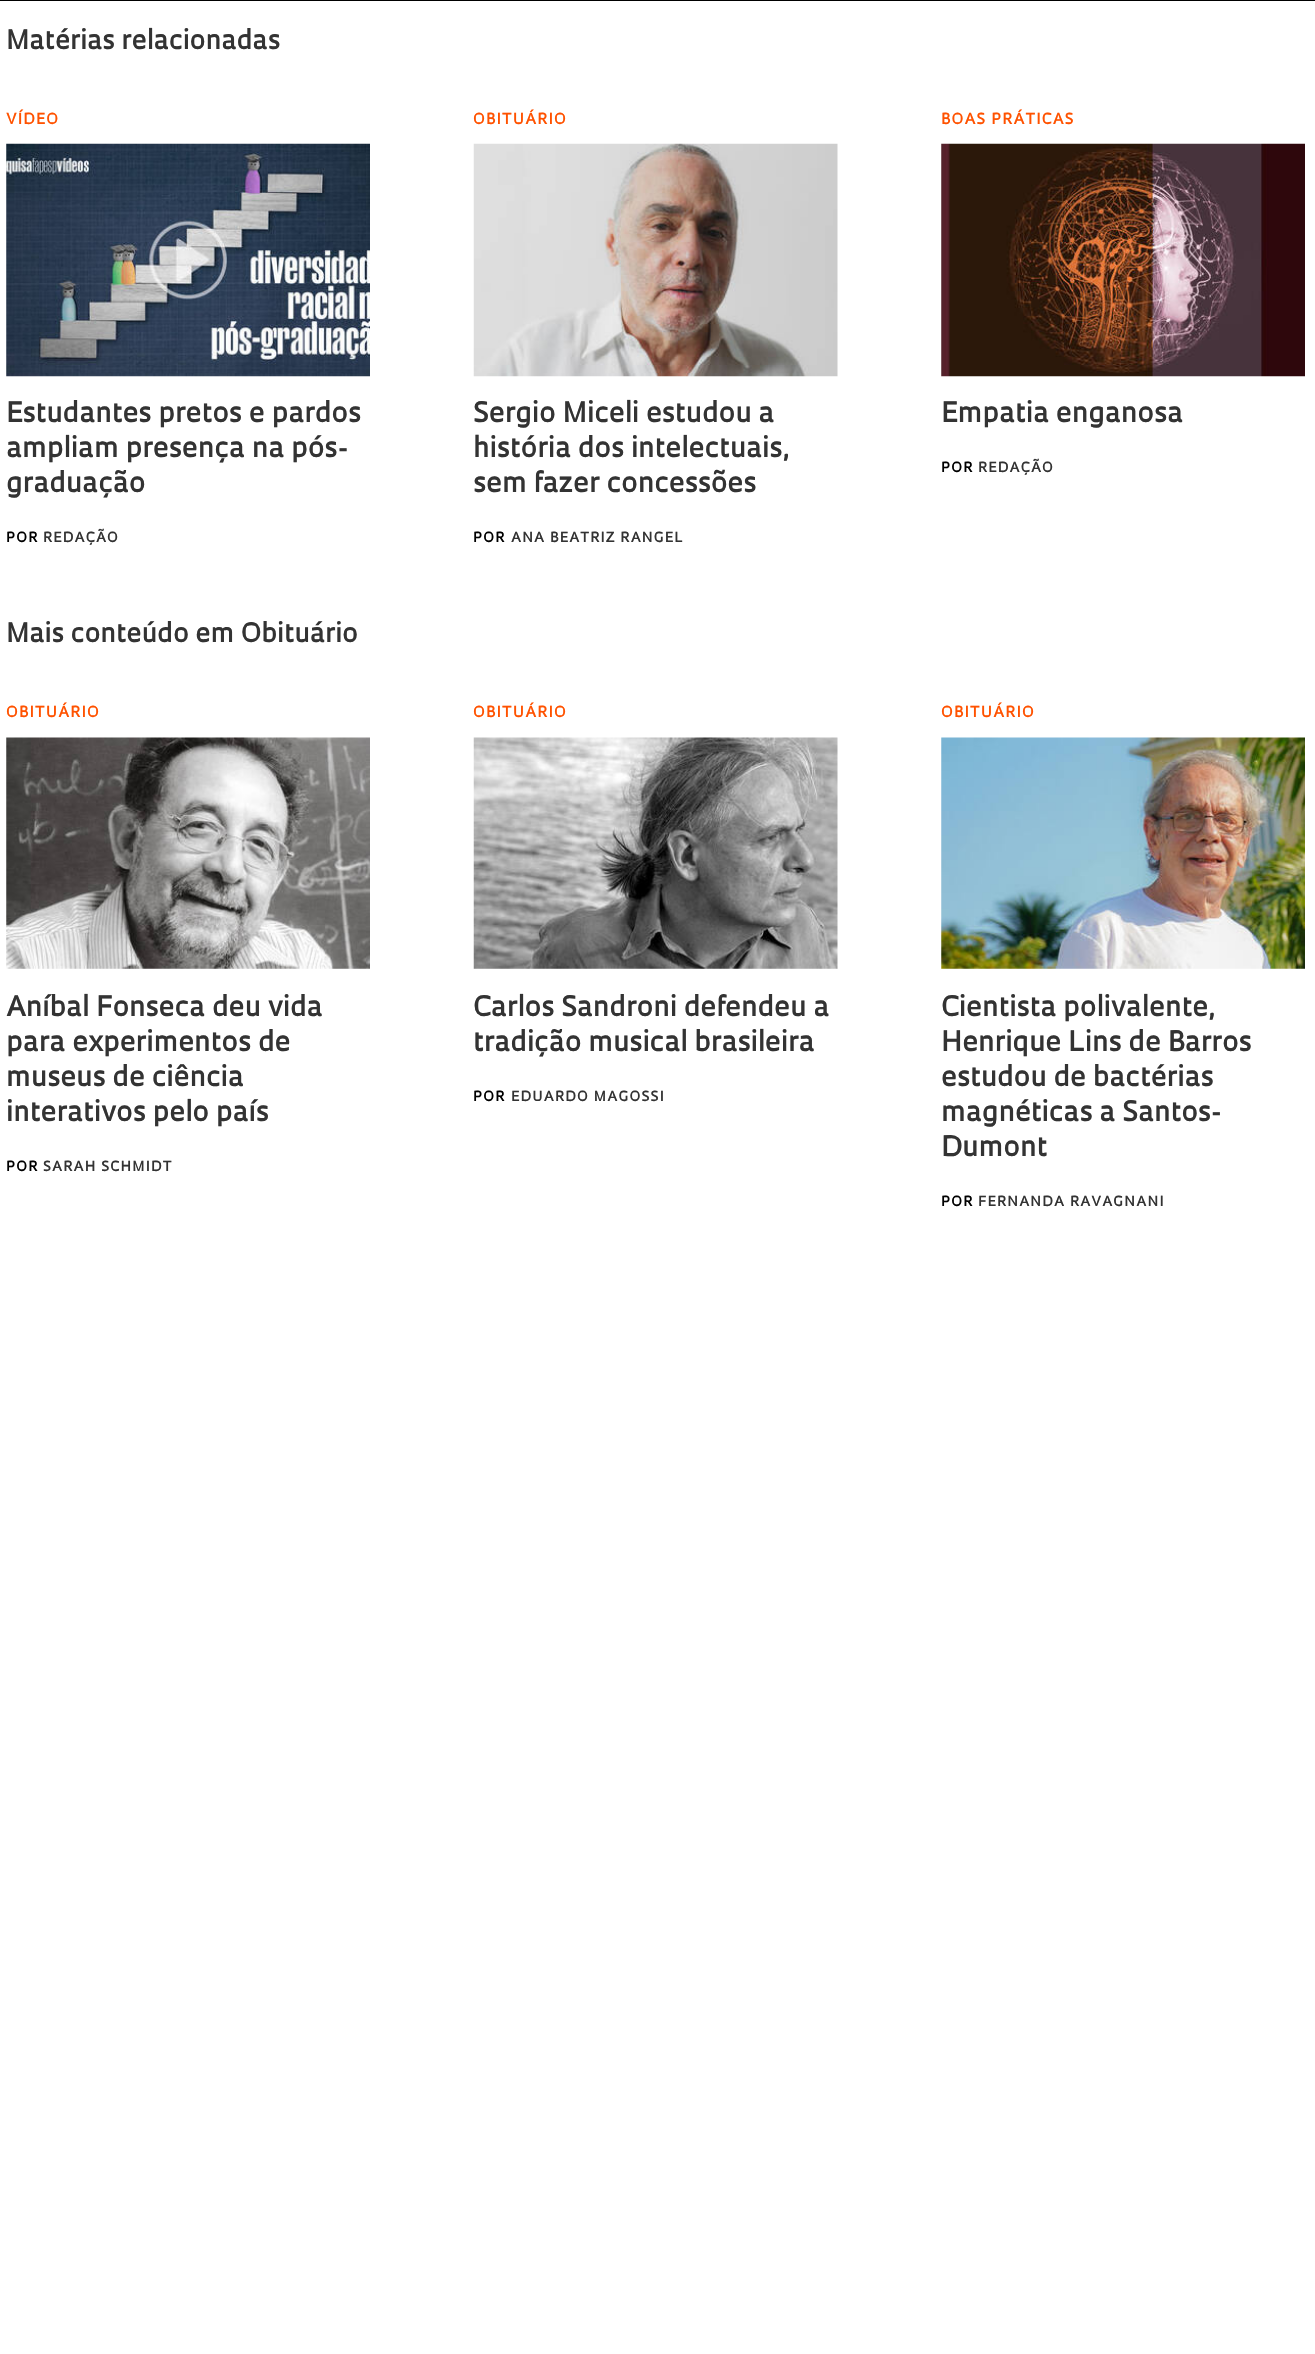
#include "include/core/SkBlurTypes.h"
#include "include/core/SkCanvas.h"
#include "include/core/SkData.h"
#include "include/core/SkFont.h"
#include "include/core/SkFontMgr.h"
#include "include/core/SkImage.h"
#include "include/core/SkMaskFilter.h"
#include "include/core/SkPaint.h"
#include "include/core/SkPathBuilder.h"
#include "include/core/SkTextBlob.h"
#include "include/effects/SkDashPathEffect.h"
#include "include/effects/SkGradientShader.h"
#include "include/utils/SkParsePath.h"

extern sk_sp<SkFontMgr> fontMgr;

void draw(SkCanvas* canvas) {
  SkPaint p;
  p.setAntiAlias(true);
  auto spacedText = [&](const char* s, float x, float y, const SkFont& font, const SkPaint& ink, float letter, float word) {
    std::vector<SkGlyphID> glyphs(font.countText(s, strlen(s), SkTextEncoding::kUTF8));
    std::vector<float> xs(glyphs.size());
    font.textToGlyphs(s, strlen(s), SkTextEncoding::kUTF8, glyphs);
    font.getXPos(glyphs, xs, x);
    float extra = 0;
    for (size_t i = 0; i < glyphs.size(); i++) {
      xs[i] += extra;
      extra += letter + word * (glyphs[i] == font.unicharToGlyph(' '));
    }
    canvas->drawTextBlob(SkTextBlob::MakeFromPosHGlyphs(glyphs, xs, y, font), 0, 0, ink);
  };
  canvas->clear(SK_ColorWHITE);
  p.setColor(SK_ColorBLACK);
  canvas->drawRect(SkRect::MakeLTRB(0, 0, 1315, 1), p);
  canvas->drawImageRect(SkImages::DeferredFromEncodedData(SkData::MakeFromFileName("images/1.png")), SkRect::MakeLTRB(6, 143, 370, 377), SkSamplingOptions());
  canvas->drawImageRect(SkImages::DeferredFromEncodedData(SkData::MakeFromFileName("images/2.png")), SkRect::MakeLTRB(473, 143, 838, 377), SkSamplingOptions());
  canvas->drawImageRect(SkImages::DeferredFromEncodedData(SkData::MakeFromFileName("images/3.png")), SkRect::MakeLTRB(941, 143, 1305, 377), SkSamplingOptions());
  canvas->drawImageRect(SkImages::DeferredFromEncodedData(SkData::MakeFromFileName("images/4.png")), SkRect::MakeLTRB(6, 737, 370, 969), SkSamplingOptions());
  canvas->drawImageRect(SkImages::DeferredFromEncodedData(SkData::MakeFromFileName("images/5.png")), SkRect::MakeLTRB(473, 737, 838, 969), SkSamplingOptions());
  canvas->drawImageRect(SkImages::DeferredFromEncodedData(SkData::MakeFromFileName("images/6.png")), SkRect::MakeLTRB(941, 737, 1305, 969), SkSamplingOptions());
  SkFont font1(fontMgr->matchFamilyStyle("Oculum", SkFontStyle(600, SkFontStyle::kNormal_Width, SkFontStyle::kUpright_Slant)), 26.25f);
  font1.setSubpixel(true);
  p.setColor(SkColorSetRGB(51, 51, 51));
  canvas->drawString("Matérias relacionadas", 6, 49, font1, p);
  SkFont font2(fontMgr->matchFamilyStyle("Oculum", SkFontStyle(600, SkFontStyle::kNormal_Width, SkFontStyle::kUpright_Slant)), 15);
  font2.setSubpixel(true);
  p.setColor(SkColorSetRGB(255, 82, 0));
  spacedText("VÍDEO", 6, 124, font2, p, 1.25f, 0);
  SkFont font3(fontMgr->matchFamilyStyle("Oculum", SkFontStyle(600, SkFontStyle::kNormal_Width, SkFontStyle::kUpright_Slant)), 27.5f);
  font3.setSubpixel(true);
  p.setColor(SkColorSetRGB(51, 51, 51));
  canvas->drawString("Estudantes pretos e pardos", 6, 422, font3, p);
  canvas->drawString("ampliam presença na pós-", 6, 457, font3, p);
  canvas->drawString("graduação", 6, 492, font3, p);
  SkFont font4(fontMgr->matchFamilyStyle("Oculum", SkFontStyle(600, SkFontStyle::kNormal_Width, SkFontStyle::kUpright_Slant)), 13.75f);
  font4.setSubpixel(true);
  p.setColor(SK_ColorBLACK);
  spacedText("POR", 6, 542, font4, p, 1.25f, 0);
  p.setColor(SkColorSetRGB(51, 51, 51));
  spacedText("REDAÇÃO", 43, 542, font4, p, 1.25f, 0);
  p.setColor(SkColorSetRGB(255, 82, 0));
  spacedText("OBITUÁRIO", 473, 124, font2, p, 1.25f, 0);
  p.setColor(SkColorSetRGB(51, 51, 51));
  canvas->drawString("Sergio Miceli estudou a", 473, 422, font3, p);
  canvas->drawString("história dos intelectuais,", 473, 457, font3, p);
  canvas->drawString("sem fazer concessões", 473, 492, font3, p);
  p.setColor(SK_ColorBLACK);
  spacedText("POR", 473, 542, font4, p, 1.25f, 0);
  p.setColor(SkColorSetRGB(51, 51, 51));
  spacedText("ANA BEATRIZ RANGEL", 511, 542, font4, p, 1.25f, 0);
  p.setColor(SkColorSetRGB(255, 82, 0));
  spacedText("BOAS PRÁTICAS", 941, 124, font2, p, 1.25f, 0);
  p.setColor(SkColorSetRGB(51, 51, 51));
  canvas->drawString("Empatia enganosa", 941, 422, font3, p);
  p.setColor(SK_ColorBLACK);
  spacedText("POR", 941, 472, font4, p, 1.25f, 0);
  p.setColor(SkColorSetRGB(51, 51, 51));
  spacedText("REDAÇÃO", 978, 472, font4, p, 1.25f, 0);
  canvas->drawString("Mais conteúdo em Obituário", 6, 642, font1, p);
  p.setColor(SkColorSetRGB(255, 82, 0));
  spacedText("OBITUÁRIO", 6, 717, font2, p, 1.25f, 0);
  p.setColor(SkColorSetRGB(51, 51, 51));
  canvas->drawString("Aníbal Fonseca deu vida", 6, 1016, font3, p);
  canvas->drawString("para experimentos de", 6, 1051, font3, p);
  canvas->drawString("museus de ciência", 6, 1086, font3, p);
  canvas->drawString("interativos pelo país", 6, 1121, font3, p);
  p.setColor(SK_ColorBLACK);
  spacedText("POR", 6, 1171, font4, p, 1.25f, 0);
  p.setColor(SkColorSetRGB(51, 51, 51));
  spacedText("SARAH SCHMIDT", 43, 1171, font4, p, 1.25f, 0);
  p.setColor(SkColorSetRGB(255, 82, 0));
  spacedText("OBITUÁRIO", 473, 717, font2, p, 1.25f, 0);
  p.setColor(SkColorSetRGB(51, 51, 51));
  canvas->drawString("Carlos Sandroni defendeu a", 473, 1016, font3, p);
  canvas->drawString("tradição musical brasileira", 473, 1051, font3, p);
  p.setColor(SK_ColorBLACK);
  spacedText("POR", 473, 1101, font4, p, 1.25f, 0);
  p.setColor(SkColorSetRGB(51, 51, 51));
  spacedText("EDUARDO MAGOSSI", 511, 1101, font4, p, 1.25f, 0);
  p.setColor(SkColorSetRGB(255, 82, 0));
  spacedText("OBITUÁRIO", 941, 717, font2, p, 1.25f, 0);
  p.setColor(SkColorSetRGB(51, 51, 51));
  canvas->drawString("Cientista polivalente,", 941, 1016, font3, p);
  canvas->drawString("Henrique Lins de Barros", 941, 1051, font3, p);
  canvas->drawString("estudou de bactérias", 941, 1086, font3, p);
  canvas->drawString("magnéticas a Santos-", 941, 1121, font3, p);
  canvas->drawString("Dumont", 941, 1156, font3, p);
  p.setColor(SK_ColorBLACK);
  spacedText("POR", 941, 1206, font4, p, 1.25f, 0);
  p.setColor(SkColorSetRGB(51, 51, 51));
  spacedText("FERNANDA RAVAGNANI", 978, 1206, font4, p, 1.25f, 0);
}
